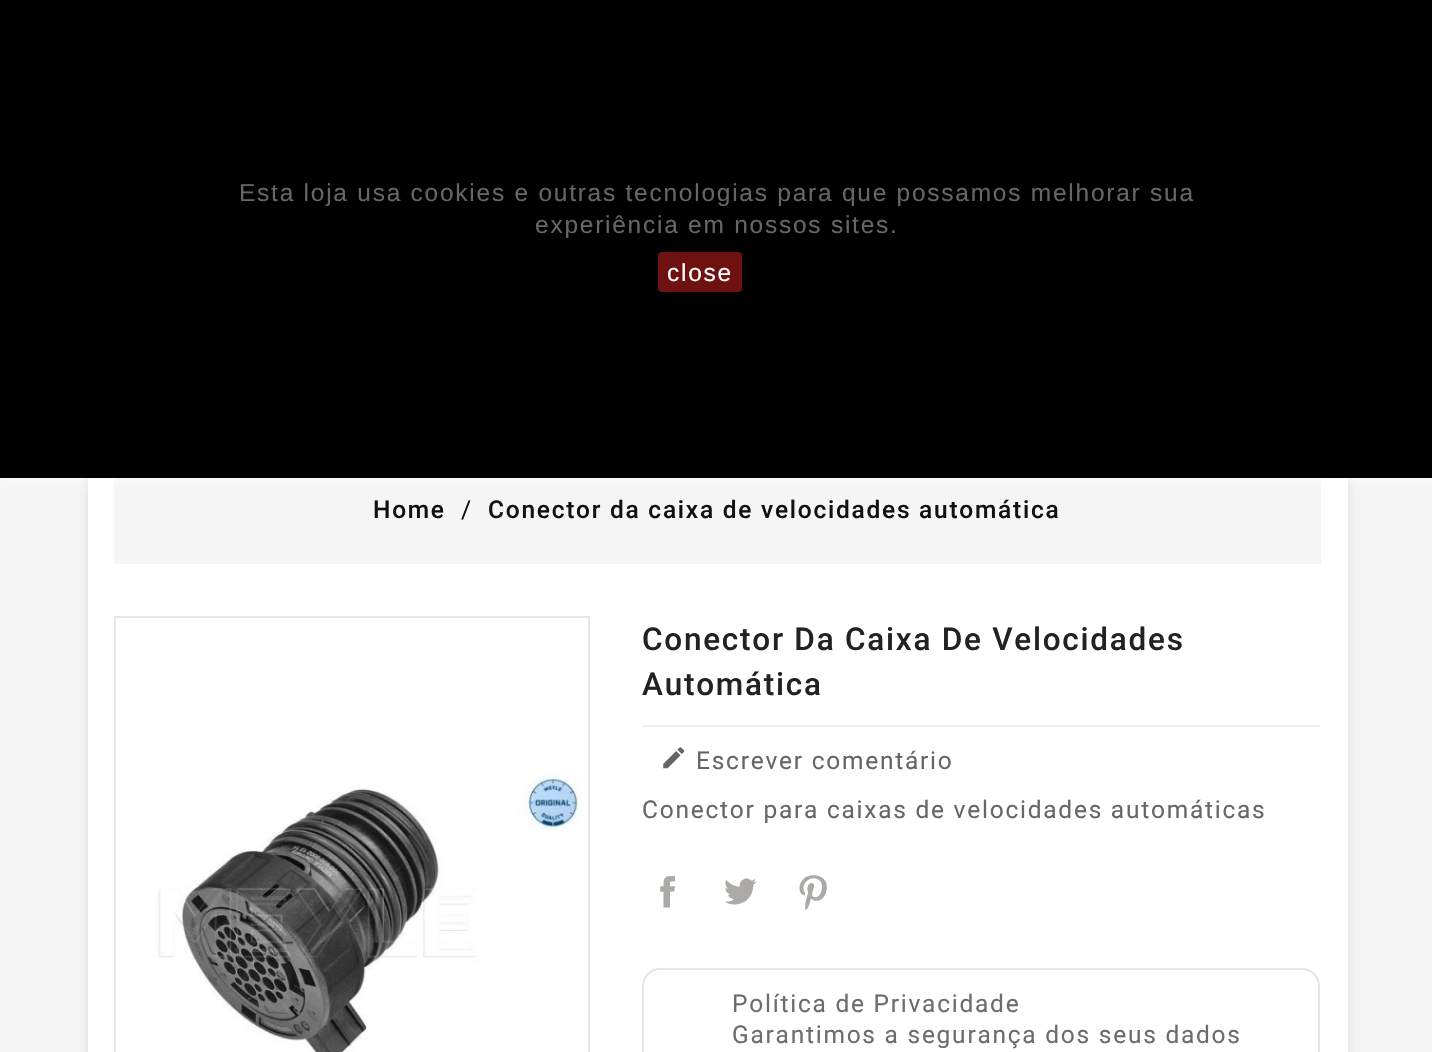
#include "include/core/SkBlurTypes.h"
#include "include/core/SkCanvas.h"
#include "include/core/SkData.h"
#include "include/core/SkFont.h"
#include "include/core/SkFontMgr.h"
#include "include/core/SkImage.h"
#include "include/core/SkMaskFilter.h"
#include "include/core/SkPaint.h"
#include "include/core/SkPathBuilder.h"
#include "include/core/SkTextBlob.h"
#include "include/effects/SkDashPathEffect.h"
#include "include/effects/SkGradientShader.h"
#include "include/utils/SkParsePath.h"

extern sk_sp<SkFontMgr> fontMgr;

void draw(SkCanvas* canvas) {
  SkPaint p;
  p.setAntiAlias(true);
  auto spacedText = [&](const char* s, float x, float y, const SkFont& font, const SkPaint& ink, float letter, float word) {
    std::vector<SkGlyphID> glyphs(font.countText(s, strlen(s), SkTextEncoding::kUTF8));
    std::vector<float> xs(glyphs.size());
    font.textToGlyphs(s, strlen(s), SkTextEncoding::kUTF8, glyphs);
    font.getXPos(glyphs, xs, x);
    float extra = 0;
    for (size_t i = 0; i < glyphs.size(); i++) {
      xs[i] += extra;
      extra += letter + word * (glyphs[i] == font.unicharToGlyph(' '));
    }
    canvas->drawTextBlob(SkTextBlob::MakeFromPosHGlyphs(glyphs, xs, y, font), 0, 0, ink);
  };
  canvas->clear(SkColorSetRGB(245, 245, 245));
  p.setColor(SkColorSetARGB(26, 0, 0, 0));
  p.setMaskFilter(SkMaskFilter::MakeBlur(kNormal_SkBlurStyle, 4.5f));
  canvas->drawRect(SkRect::MakeLTRB(88, 429, 1348, 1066), p);
  p.setMaskFilter(nullptr);
  p.setColor(SK_ColorWHITE);
  canvas->drawRect(SkRect::MakeLTRB(88, 478, 1348, 1052), p);
  p.setColor(SkColorSetRGB(245, 245, 245));
  canvas->drawRect(SkRect::MakeLTRB(114, 478, 1321, 564), p);
  p.setColor(SK_ColorWHITE);
  p.setMaskFilter(SkMaskFilter::MakeBlur(kNormal_SkBlurStyle, 9));
  canvas->drawRect(SkRect::MakeLTRB(0, 0, 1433, 478), p);
  p.setMaskFilter(nullptr);
  p.setColor(SK_ColorBLACK);
  canvas->drawRect(SkRect::MakeLTRB(0, 0, 1432, 478), p);
  p.setColor(SkColorSetRGB(112, 17, 17));
  canvas->drawRoundRect(SkRect::MakeLTRB(658, 252, 742, 292), 4, 4, p);
  p.setColor(SkColorSetRGB(229, 229, 229));
  canvas->drawRect(SkRect::MakeLTRB(114, 616, 590, 618), p);
  canvas->drawRect(SkRect::MakeLTRB(588, 616, 590, 1052), p);
  canvas->drawRect(SkRect::MakeLTRB(114, 616, 116, 1052), p);
  canvas->drawImageRect(SkImages::DeferredFromEncodedData(SkData::MakeFromFileName("images/1.png")), SkRect::MakeLTRB(115, 618, 582, 1052), SkSamplingOptions());
  p.setColor(SkColorSetRGB(240, 240, 240));
  canvas->drawRect(SkRect::MakeLTRB(642, 725, 1320, 727), p);
  canvas->drawImageRect(SkImages::DeferredFromEncodedData(SkData::MakeFromFileName("images/2.png")), SkRect::MakeLTRB(663, 747, 685, 769), SkSamplingOptions());
  canvas->drawImageRect(SkImages::DeferredFromEncodedData(SkData::MakeFromFileName("images/3.png")), SkRect::MakeLTRB(660, 876, 675, 908), SkSamplingOptions());
  canvas->drawImageRect(SkImages::DeferredFromEncodedData(SkData::MakeFromFileName("images/4.png")), SkRect::MakeLTRB(725, 878, 757, 905), SkSamplingOptions());
  canvas->drawImageRect(SkImages::DeferredFromEncodedData(SkData::MakeFromFileName("images/5.png")), SkRect::MakeLTRB(799, 875, 827, 910), SkSamplingOptions());
  p.setStyle(SkPaint::kStroke_Style);
  p.setStrokeWidth(2);
  p.setColor(SkColorSetRGB(229, 229, 229));
  canvas->drawRoundRect(SkRect::MakeLTRB(643, 969, 1319, 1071), 17, 17, p);
  SkFont font1(fontMgr->matchFamilyStyle("Liberation Sans", SkFontStyle::Normal()), 24.5f);
  font1.setSubpixel(true);
  p.setStyle(SkPaint::kFill_Style);
  p.setColor(SkColorSetRGB(102, 102, 102));
  spacedText("Esta loja usa cookies e outras tecnologias para que possamos melhorar sua", 239, 201, font1, p, 1.75f, 0);
  spacedText("experiência em nossos sites.", 535, 233, font1, p, 1.75f, 0);
  p.setColor(SK_ColorWHITE);
  spacedText("close", 667, 281, font1, p, 1.75f, 0);
  SkFont font2(fontMgr->matchFamilyStyle("Roboto", SkFontStyle(500, SkFontStyle::kNormal_Width, SkFontStyle::kUpright_Slant)), 24.5f);
  font2.setSubpixel(true);
  p.setColor(SkColorSetRGB(17, 17, 17));
  spacedText("Home", 373, 518, font2, p, 1.75f, 0);
  SkFont font3(fontMgr->matchFamilyStyle("Roboto", SkFontStyle::Normal()), 24.5f);
  font3.setSubpixel(true);
  spacedText("/", 461, 518, font3, p, 1.75f, 0);
  spacedText("Conector da caixa de velocidades automática", 488, 518, font2, p, 1.75f, 0);
  SkFont font4(fontMgr->matchFamilyStyle("Roboto", SkFontStyle(500, SkFontStyle::kNormal_Width, SkFontStyle::kUpright_Slant)), 31.5f);
  font4.setSubpixel(true);
  p.setColor(SkColorSetRGB(34, 34, 34));
  spacedText("Conector Da Caixa De Velocidades", 642, 650, font4, p, 1.75f, 0);
  spacedText("Automática", 642, 695, font4, p, 1.75f, 0);
  p.setColor(SkColorSetRGB(102, 102, 102));
  spacedText("Escrever comentário", 696, 769, font3, p, 1.75f, 0);
  spacedText("Conector para caixas de velocidades automáticas", 642, 818, font3, p, 1.75f, 0);
  p.setColor(SkColorSetRGB(108, 108, 108));
  spacedText("Política de Privacidade", 732, 1012, font3, p, 1.75f, 0);
  spacedText("Garantimos a segurança dos seus dados", 732, 1043, font3, p, 1.75f, 0);
}
